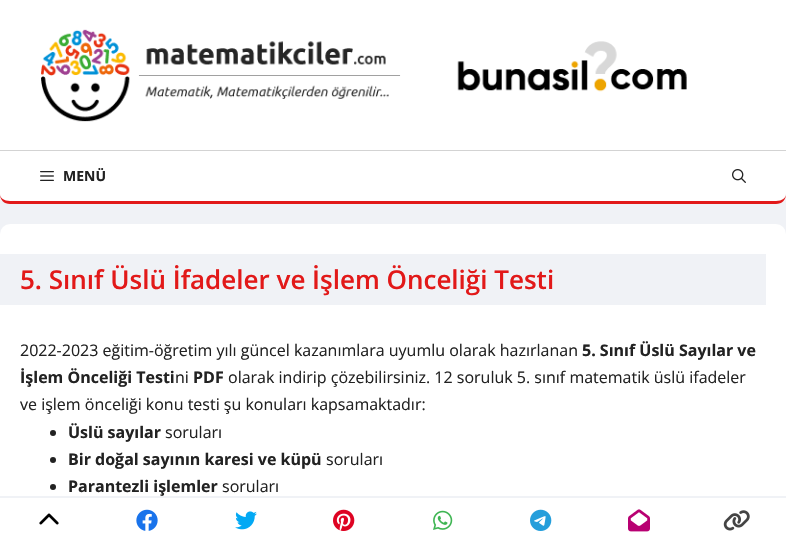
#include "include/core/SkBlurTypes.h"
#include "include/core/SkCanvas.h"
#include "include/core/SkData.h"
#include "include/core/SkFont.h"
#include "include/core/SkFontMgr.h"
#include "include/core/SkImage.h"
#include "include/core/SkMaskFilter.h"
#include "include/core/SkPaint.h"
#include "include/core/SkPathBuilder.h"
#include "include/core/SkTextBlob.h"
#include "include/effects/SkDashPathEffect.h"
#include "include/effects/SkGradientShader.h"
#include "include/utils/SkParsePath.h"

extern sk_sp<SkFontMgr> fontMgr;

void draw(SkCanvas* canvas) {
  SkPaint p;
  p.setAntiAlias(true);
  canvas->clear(SkColorSetRGB(240, 242, 246));
  p.setColor(SK_ColorWHITE);
  canvas->drawRect(SkRect::MakeLTRB(0, 0, 786, 150), p);
  canvas->drawImageRect(SkImages::DeferredFromEncodedData(SkData::MakeFromFileName("images/1.png")), SkRect::MakeLTRB(41, 29, 401, 122), SkSamplingOptions());
  canvas->drawImageRect(SkImages::DeferredFromEncodedData(SkData::MakeFromFileName("images/2.png")), SkRect::MakeLTRB(457, 41, 687, 92), SkSamplingOptions());
  canvas->drawPath(SkPathBuilder().moveTo(0, 150).lineTo(786, 150).lineTo(786, 194).cubicTo(786, 199.5f, 781.5f, 204, 776, 204).lineTo(10, 204).cubicTo(4.5f, 204, 0, 199.5f, 0, 194).close().detach(), p);
  p.setColor(SkColorSetRGB(211, 211, 211));
  canvas->drawRect(SkRect::MakeLTRB(0, 150, 786, 151), p);
  p.setColor(SkColorSetRGB(226, 25, 25));
  canvas->drawPath(SkPathBuilder().moveTo(10, 204).lineTo(776, 204).cubicTo(782, 204, 786, 200, 786, 194).cubicTo(786, 198, 782, 201, 776, 201).lineTo(10, 201).cubicTo(4, 201, 0, 198, 0, 194).cubicTo(0, 200, 4, 204, 10, 204).close().detach(), p);
  canvas->drawImageRect(SkImages::DeferredFromEncodedData(SkData::MakeFromFileName("images/3.png")), SkRect::MakeLTRB(40, 171, 54, 181), SkSamplingOptions());
  canvas->drawImageRect(SkImages::DeferredFromEncodedData(SkData::MakeFromFileName("images/4.png")), SkRect::MakeLTRB(732, 169, 746, 183), SkSamplingOptions());
  p.setColor(SK_ColorWHITE);
  canvas->drawRoundRect(SkRect::MakeLTRB(0, 224, 786, 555), 10, 10, p);
  p.setColor(SkColorSetRGB(240, 242, 246));
  canvas->drawRect(SkRect::MakeLTRB(0, 254, 766, 305), p);
  p.setColor(SkColorSetRGB(34, 34, 34));
  canvas->drawCircle(53, 433, 3, p);
  canvas->drawCircle(53, 460, 3, p);
  canvas->drawCircle(53, 487, 3, p);
  p.setColor(SkColorSetRGB(240, 242, 246));
  canvas->drawRect(SkRect::MakeLTRB(0, 496, 786, 498), p);
  canvas->drawImageRect(SkImages::DeferredFromEncodedData(SkData::MakeFromFileName("images/5.png")), SkRect::MakeLTRB(39, 513, 59, 525), SkSamplingOptions());
  canvas->drawImageRect(SkImages::DeferredFromEncodedData(SkData::MakeFromFileName("images/6.png")), SkRect::MakeLTRB(136, 509, 158, 531), SkSamplingOptions());
  canvas->drawImageRect(SkImages::DeferredFromEncodedData(SkData::MakeFromFileName("images/7.png")), SkRect::MakeLTRB(235, 511, 257, 530), SkSamplingOptions());
  canvas->drawImageRect(SkImages::DeferredFromEncodedData(SkData::MakeFromFileName("images/8.png")), SkRect::MakeLTRB(333, 509, 355, 531), SkSamplingOptions());
  canvas->drawImageRect(SkImages::DeferredFromEncodedData(SkData::MakeFromFileName("images/9.png")), SkRect::MakeLTRB(433, 510, 453, 530), SkSamplingOptions());
  canvas->drawImageRect(SkImages::DeferredFromEncodedData(SkData::MakeFromFileName("images/10.png")), SkRect::MakeLTRB(530, 509, 552, 531), SkSamplingOptions());
  canvas->drawImageRect(SkImages::DeferredFromEncodedData(SkData::MakeFromFileName("images/11.png")), SkRect::MakeLTRB(628, 509, 650, 532), SkSamplingOptions());
  canvas->drawImageRect(SkImages::DeferredFromEncodedData(SkData::MakeFromFileName("images/12.png")), SkRect::MakeLTRB(723, 510, 750, 531), SkSamplingOptions());
  SkFont font1(fontMgr->matchFamilyStyle("Open Sans", SkFontStyle::Bold()), 14);
  font1.setSubpixel(true);
  p.setColor(SkColorSetRGB(34, 34, 34));
  canvas->drawString("MENÜ", 63, 181, font1, p);
  SkFont font2(fontMgr->matchFamilyStyle("Open Sans", SkFontStyle(600, SkFontStyle::kNormal_Width, SkFontStyle::kUpright_Slant)), 26);
  font2.setSubpixel(true);
  p.setColor(SkColorSetRGB(226, 25, 25));
  canvas->drawString("5. Sınıf Üslü İfadeler ve İşlem Önceliği Testi", 20, 289, font2, p);
  SkFont font3(fontMgr->matchFamilyStyle("Open Sans", SkFontStyle::Normal()), 16);
  font3.setSubpixel(true);
  p.setColor(SkColorSetRGB(34, 34, 34));
  canvas->drawString("2022-2023 eğitim-öğretim yılı güncel kazanımlara uyumlu olarak hazırlanan", 20, 356, font3, p);
  SkFont font4(fontMgr->matchFamilyStyle("Open Sans", SkFontStyle::Bold()), 16);
  font4.setSubpixel(true);
  canvas->drawString("5. Sınıf Üslü Sayılar ve", 582, 356, font4, p);
  canvas->drawString("İşlem Önceliği Testi", 20, 383, font4, p);
  canvas->drawString("ni", 175, 383, font3, p);
  canvas->drawString("PDF", 193, 383, font4, p);
  canvas->drawString("olarak indirip çözebilirsiniz. 12 soruluk 5. sınıf matematik üslü ifadeler", 228, 383, font3, p);
  canvas->drawString("ve işlem önceliği konu testi şu konuları kapsamaktadır:", 20, 410, font3, p);
  canvas->drawString("Üslü sayılar", 68, 438, font4, p);
  canvas->drawString("soruları", 165, 438, font3, p);
  canvas->drawString("Bir doğal sayının karesi ve küpü", 68, 465, font4, p);
  canvas->drawString("soruları", 326, 465, font3, p);
  canvas->drawString("Parantezli işlemler", 68, 492, font4, p);
  canvas->drawString("soruları", 222, 492, font3, p);
}
